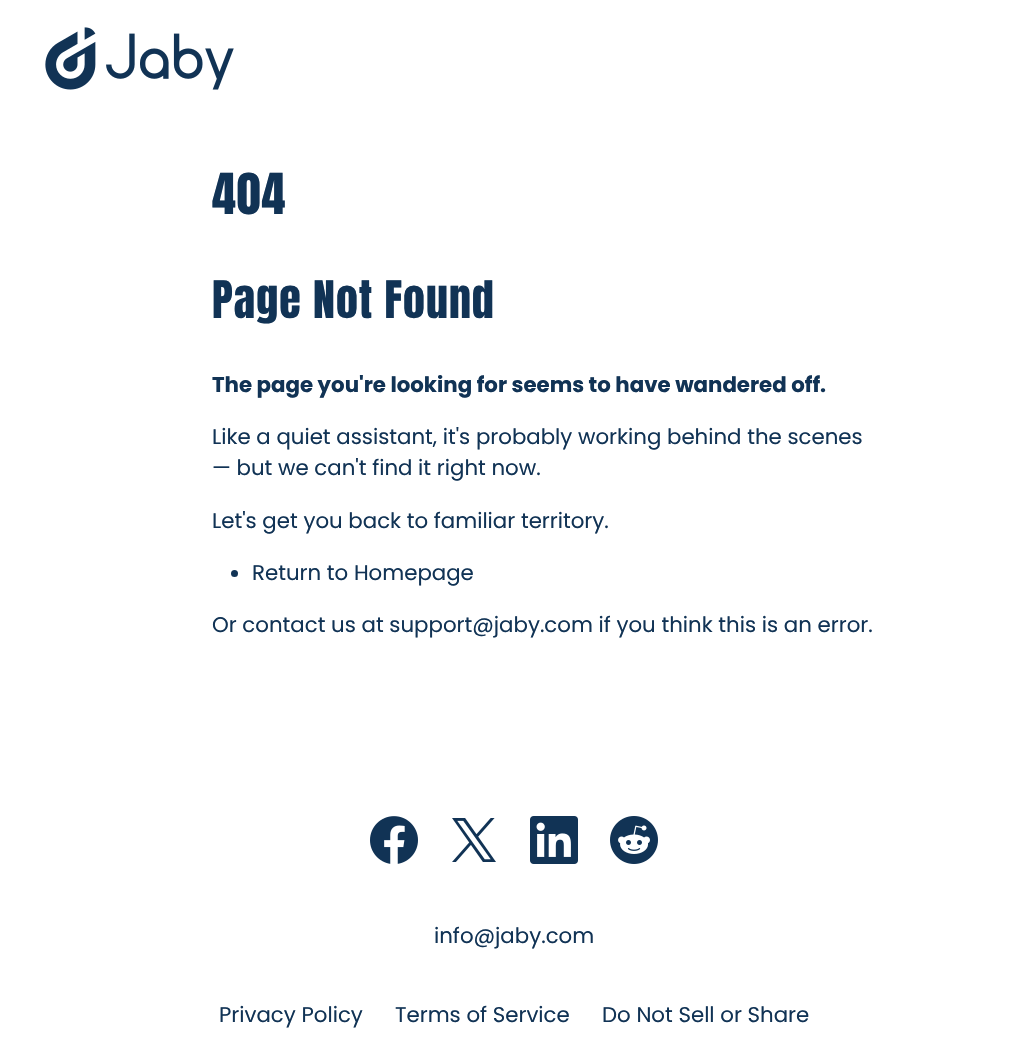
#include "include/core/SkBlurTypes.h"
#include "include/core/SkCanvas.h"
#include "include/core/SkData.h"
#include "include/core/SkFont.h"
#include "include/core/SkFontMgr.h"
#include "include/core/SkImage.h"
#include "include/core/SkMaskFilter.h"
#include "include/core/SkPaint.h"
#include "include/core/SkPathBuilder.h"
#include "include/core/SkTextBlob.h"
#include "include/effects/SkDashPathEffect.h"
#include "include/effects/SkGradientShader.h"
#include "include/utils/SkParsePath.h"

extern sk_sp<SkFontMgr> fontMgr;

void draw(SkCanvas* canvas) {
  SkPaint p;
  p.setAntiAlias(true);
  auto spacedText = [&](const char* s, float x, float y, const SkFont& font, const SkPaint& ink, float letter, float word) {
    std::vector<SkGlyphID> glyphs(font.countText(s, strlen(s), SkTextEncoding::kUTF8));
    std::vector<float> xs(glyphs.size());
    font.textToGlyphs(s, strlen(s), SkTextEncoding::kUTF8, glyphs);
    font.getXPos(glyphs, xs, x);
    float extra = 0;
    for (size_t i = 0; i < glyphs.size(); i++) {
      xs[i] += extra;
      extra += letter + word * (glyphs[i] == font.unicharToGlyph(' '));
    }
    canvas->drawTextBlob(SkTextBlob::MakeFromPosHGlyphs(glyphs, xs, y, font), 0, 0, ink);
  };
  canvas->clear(SK_ColorWHITE);
  canvas->drawImageRect(SkImages::DeferredFromEncodedData(SkData::MakeFromFileName("images/1.png")), SkRect::MakeLTRB(45, 27, 234, 90), SkSamplingOptions());
  p.setColor(SkColorSetRGB(17, 51, 85));
  canvas->drawCircle(234.5f, 573.5f, 3.5f, p);
  canvas->drawImageRect(SkImages::DeferredFromEncodedData(SkData::MakeFromFileName("images/2.png")), SkRect::MakeLTRB(370, 816, 418, 864), SkSamplingOptions());
  canvas->drawImageRect(SkImages::DeferredFromEncodedData(SkData::MakeFromFileName("images/3.png")), SkRect::MakeLTRB(452, 818, 496, 862), SkSamplingOptions());
  canvas->drawImageRect(SkImages::DeferredFromEncodedData(SkData::MakeFromFileName("images/4.png")), SkRect::MakeLTRB(530, 816, 578, 864), SkSamplingOptions());
  canvas->drawImageRect(SkImages::DeferredFromEncodedData(SkData::MakeFromFileName("images/5.png")), SkRect::MakeLTRB(610, 816, 658, 864), SkSamplingOptions());
  SkFont font1(fontMgr->matchFamilyStyle("Anton", SkFontStyle::Normal()), 48);
  font1.setSubpixel(true);
  spacedText("404", 212, 214, font1, p, 1, 0);
  SkFont font2(fontMgr->matchFamilyStyle("Anton", SkFontStyle::Normal()), 44);
  font2.setSubpixel(true);
  spacedText("Page Not Found", 212, 318, font2, p, 1, 0);
  SkFont font3(fontMgr->matchFamilyStyle("Poppins", SkFontStyle::Bold()), 21.3f);
  font3.setSubpixel(true);
  canvas->drawString("The page you're looking for seems to have wandered off.", 212, 392, font3, p);
  SkFont font4(fontMgr->matchFamilyStyle("Poppins", SkFontStyle::Normal()), 21.3f);
  font4.setSubpixel(true);
  canvas->drawString("Like a quiet assistant, it's probably working behind the scenes", 212, 444, font4, p);
  canvas->drawString("— but we can't find it right now.", 212, 475, font4, p);
  canvas->drawString("Let's get you back to familiar territory.", 212, 528, font4, p);
  canvas->drawString("Return to Homepage", 252, 580, font4, p);
  canvas->drawString("Or contact us at support@jaby.com if you think this is an error.", 212, 632, font4, p);
  canvas->drawString("info@jaby.com", 434, 943, font4, p);
  canvas->drawString("Privacy Policy", 219, 1022, font4, p);
  canvas->drawString("Terms of Service", 395, 1022, font4, p);
  canvas->drawString("Do Not Sell or Share", 602, 1022, font4, p);
}
